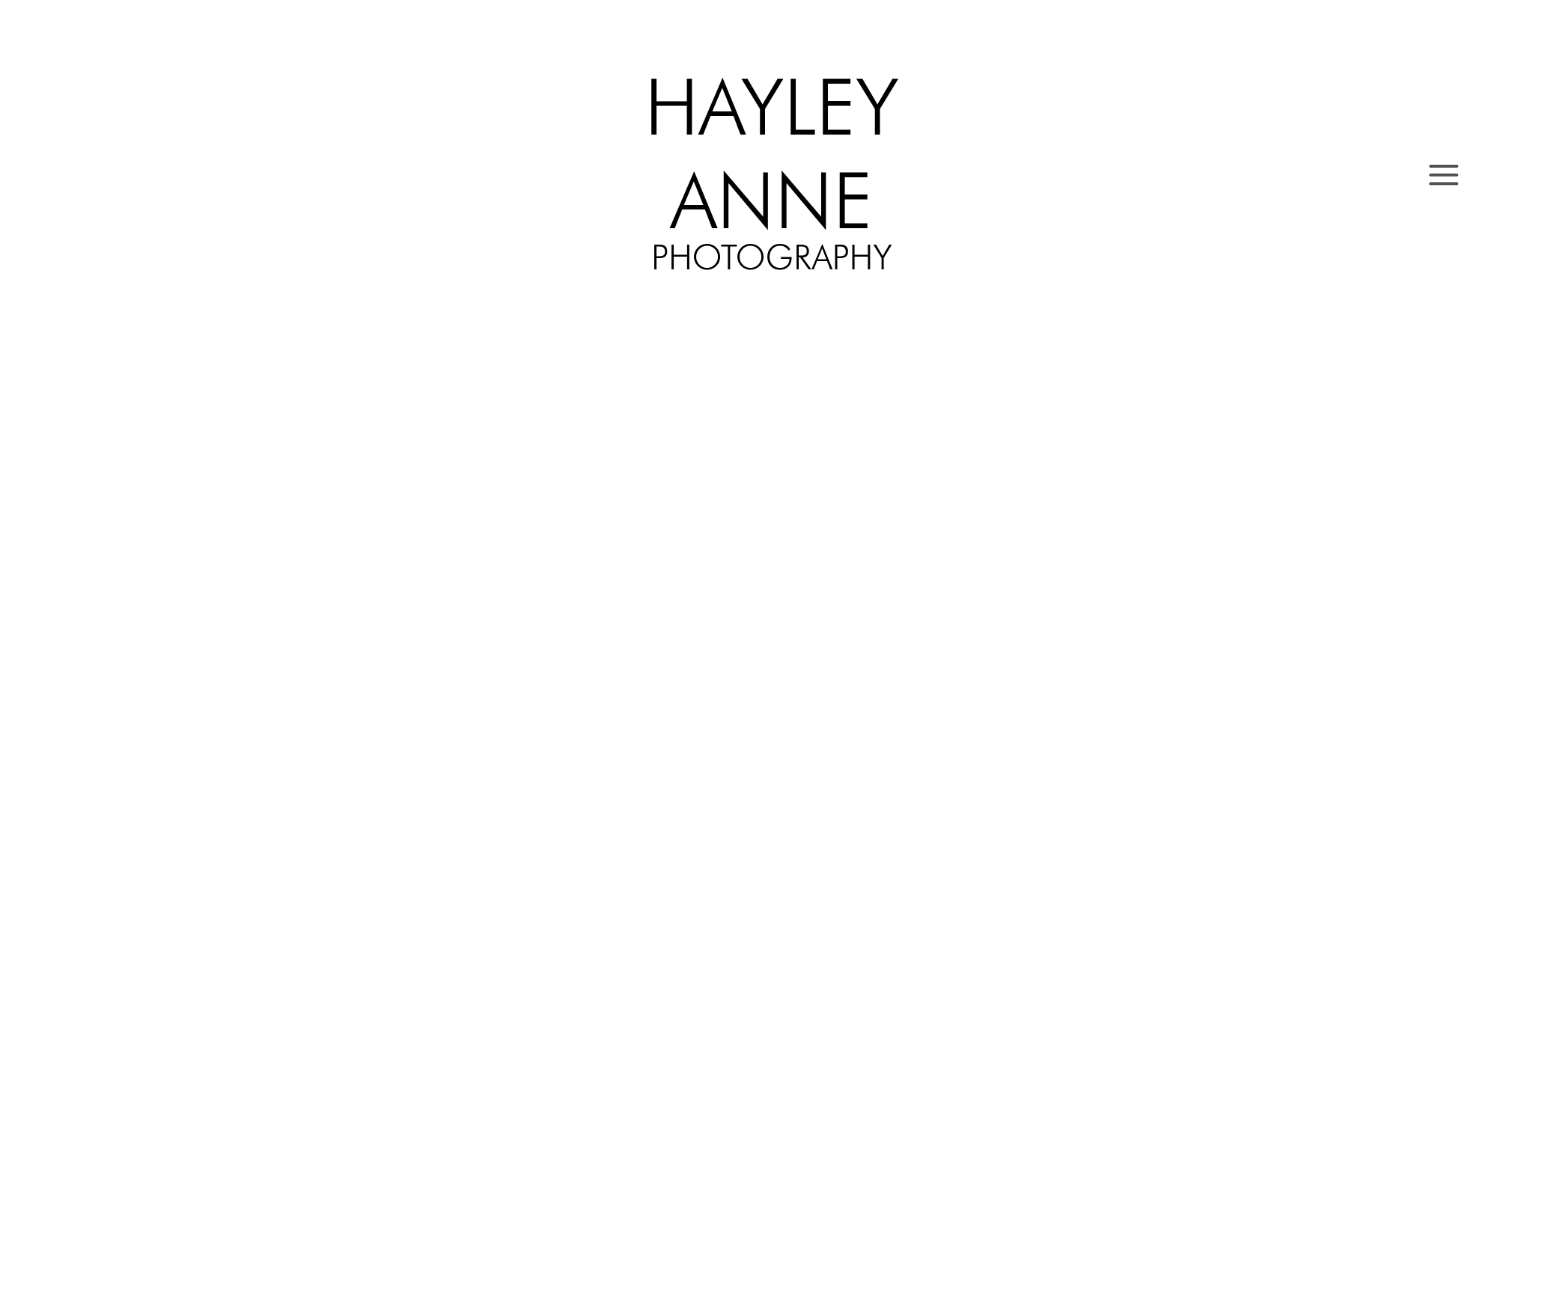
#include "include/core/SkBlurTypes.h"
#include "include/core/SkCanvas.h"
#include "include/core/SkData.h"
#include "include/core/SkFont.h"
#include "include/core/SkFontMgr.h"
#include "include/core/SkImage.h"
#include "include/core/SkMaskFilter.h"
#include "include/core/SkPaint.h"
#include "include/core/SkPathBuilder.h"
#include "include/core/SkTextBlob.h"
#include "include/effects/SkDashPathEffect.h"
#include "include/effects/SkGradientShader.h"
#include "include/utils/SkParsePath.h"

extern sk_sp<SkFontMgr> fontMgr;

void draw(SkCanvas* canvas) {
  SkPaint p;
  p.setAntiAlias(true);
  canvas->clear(SK_ColorWHITE);
  canvas->drawImageRect(SkImages::DeferredFromEncodedData(SkData::MakeFromFileName("images/1.png")), SkRect::MakeLTRB(651, 77, 899, 270), SkSamplingOptions());
  canvas->drawImageRect(SkImages::DeferredFromEncodedData(SkData::MakeFromFileName("images/2.png")), SkRect::MakeLTRB(1429, 164, 1459, 186), SkSamplingOptions());
}
